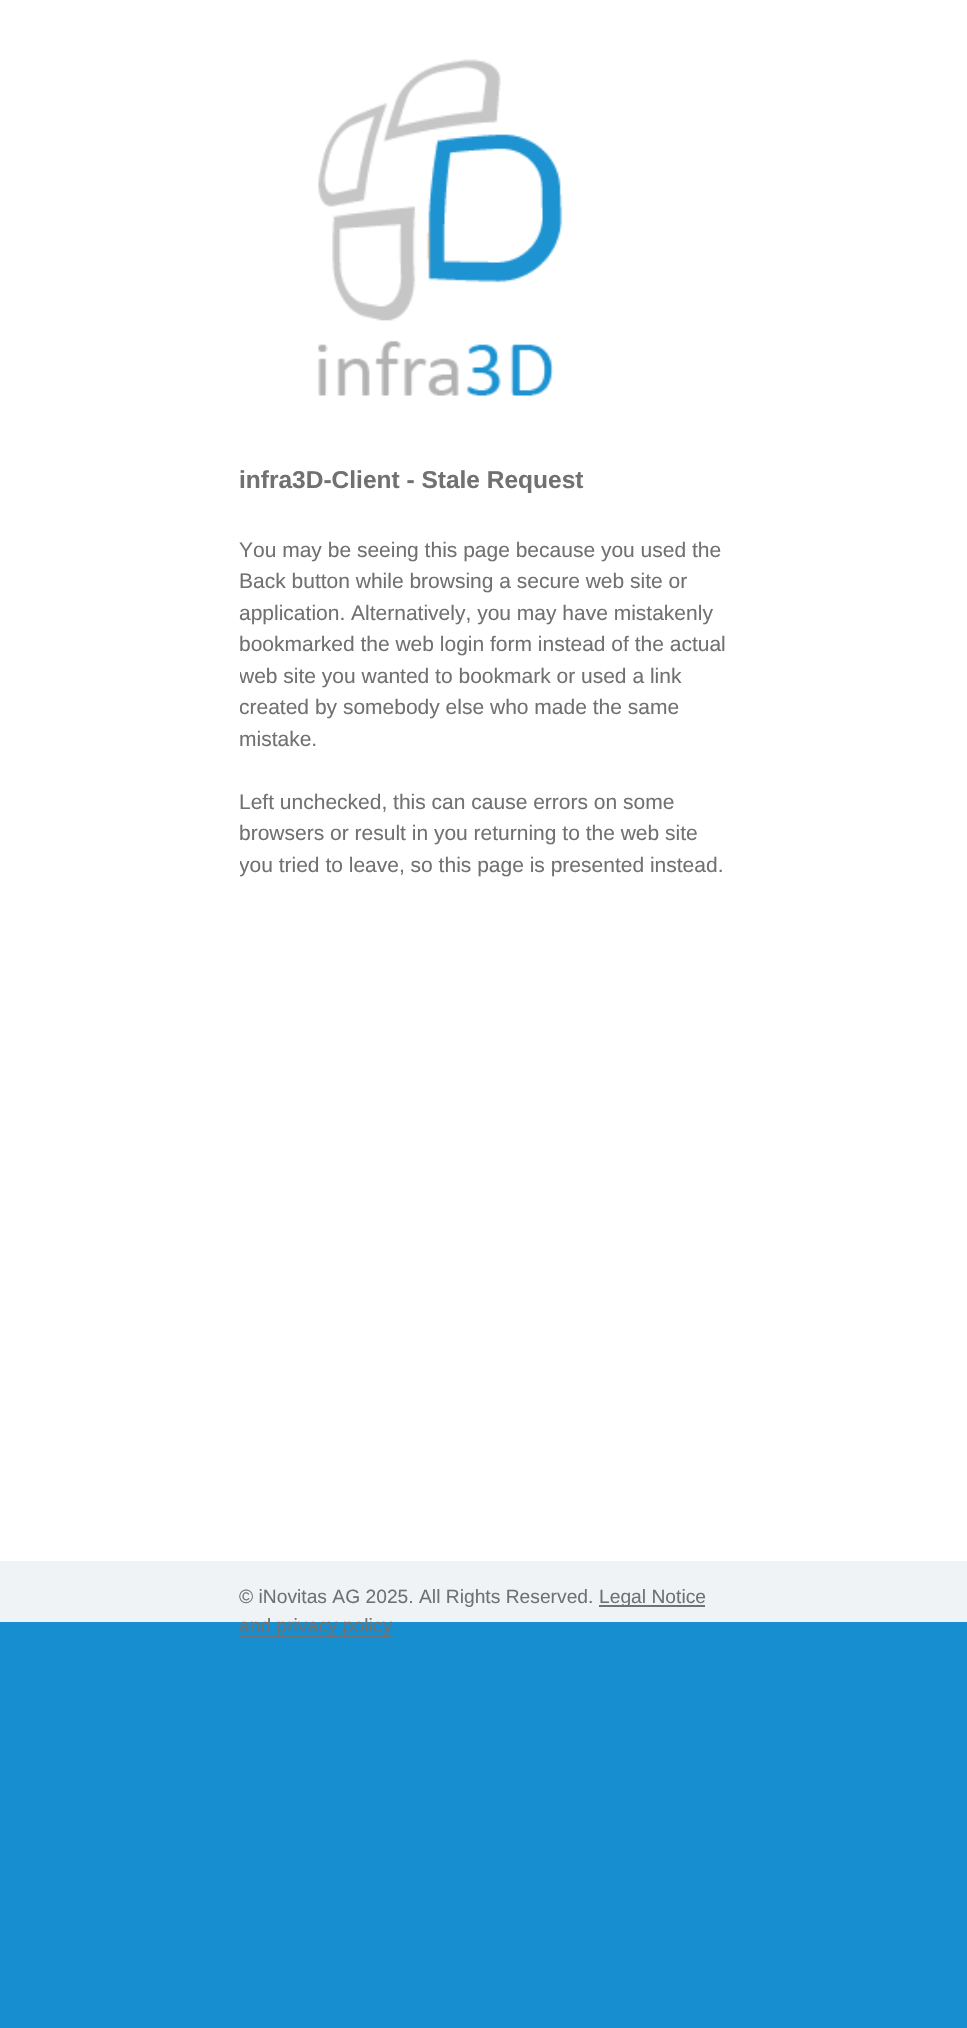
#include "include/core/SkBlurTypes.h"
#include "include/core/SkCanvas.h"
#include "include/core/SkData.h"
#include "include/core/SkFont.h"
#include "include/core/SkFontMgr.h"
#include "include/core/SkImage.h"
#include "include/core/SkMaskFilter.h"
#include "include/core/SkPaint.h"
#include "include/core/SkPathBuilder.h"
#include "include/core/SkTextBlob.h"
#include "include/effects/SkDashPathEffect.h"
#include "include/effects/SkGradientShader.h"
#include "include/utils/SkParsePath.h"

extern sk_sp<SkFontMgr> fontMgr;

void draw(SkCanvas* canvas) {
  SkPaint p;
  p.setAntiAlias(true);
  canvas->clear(SkColorSetRGB(22, 142, 207));
  p.setColor(SK_ColorWHITE);
  canvas->drawRect(SkRect::MakeLTRB(0, 0, 967, 1561), p);
  canvas->drawImageRect(SkImages::DeferredFromEncodedData(SkData::MakeFromFileName("images/1.png")), SkRect::MakeLTRB(318, 59, 563, 396), SkSamplingOptions());
  p.setColor(SkColorSetRGB(240, 243, 245));
  canvas->drawRect(SkRect::MakeLTRB(0, 1561, 967, 1622), p);
  p.setColor(SkColorSetRGB(113, 113, 113));
  canvas->drawRect(SkRect::MakeLTRB(599, 1605, 705, 1607), p);
  canvas->drawRect(SkRect::MakeLTRB(240, 1635, 392, 1637), p);
  SkFont font1(fontMgr->matchFamilyStyle("Liberation Sans", SkFontStyle::Bold()), 24.5f);
  font1.setSubpixel(true);
  canvas->drawString("infra3D-Client - Stale Request", 239, 488, font1, p);
  SkFont font2(fontMgr->matchFamilyStyle("Liberation Sans", SkFontStyle::Normal()), 21);
  font2.setSubpixel(true);
  canvas->drawString("You may be seeing this page because you used the", 239, 557, font2, p);
  canvas->drawString("Back button while browsing a secure web site or", 239, 588, font2, p);
  canvas->drawString("application. Alternatively, you may have mistakenly", 239, 620, font2, p);
  canvas->drawString("bookmarked the web login form instead of the actual", 239, 651, font2, p);
  canvas->save();
  canvas->clipRect(SkRect::MakeLTRB(240, 534, 730, 1020));
  canvas->drawString("web site you wanted to bookmark or used a link", 239, 683, font2, p);
  canvas->drawString("created by somebody else who made the same", 239, 714, font2, p);
  canvas->restore();
  canvas->drawString("mistake.", 239, 746, font2, p);
  canvas->drawString("Left unchecked, this can cause errors on some", 239, 809, font2, p);
  canvas->drawString("browsers or result in you returning to the web site", 239, 840, font2, p);
  canvas->save();
  canvas->clipRect(SkRect::MakeLTRB(240, 534, 730, 1020));
  canvas->drawString("you tried to leave, so this page is presented instead.", 239, 872, font2, p);
  canvas->restore();
  SkFont font3(fontMgr->matchFamilyStyle("Liberation Sans", SkFontStyle::Normal()), 19.25f);
  font3.setSubpixel(true);
  canvas->drawString("© iNovitas AG 2025. All Rights Reserved.", 239, 1603, font3, p);
  canvas->drawString("Legal Notice", 599, 1603, font3, p);
  canvas->drawString("and privacy policy", 239, 1632, font3, p);
}
